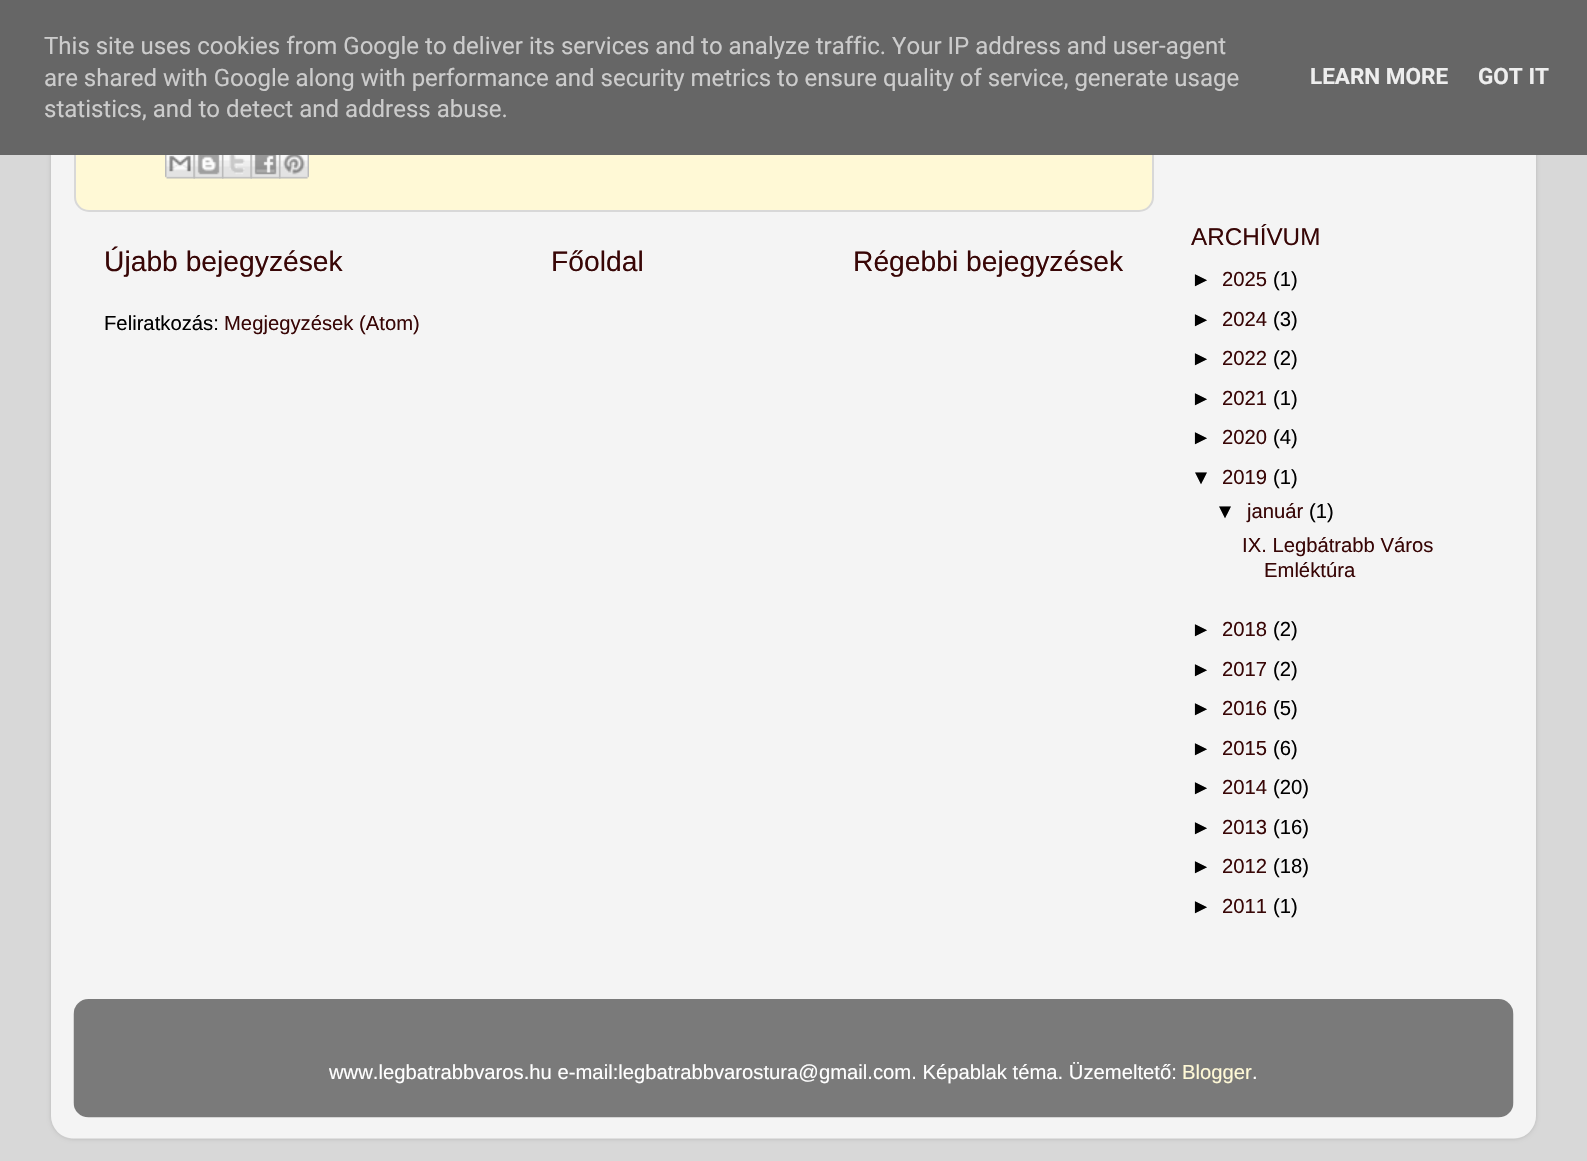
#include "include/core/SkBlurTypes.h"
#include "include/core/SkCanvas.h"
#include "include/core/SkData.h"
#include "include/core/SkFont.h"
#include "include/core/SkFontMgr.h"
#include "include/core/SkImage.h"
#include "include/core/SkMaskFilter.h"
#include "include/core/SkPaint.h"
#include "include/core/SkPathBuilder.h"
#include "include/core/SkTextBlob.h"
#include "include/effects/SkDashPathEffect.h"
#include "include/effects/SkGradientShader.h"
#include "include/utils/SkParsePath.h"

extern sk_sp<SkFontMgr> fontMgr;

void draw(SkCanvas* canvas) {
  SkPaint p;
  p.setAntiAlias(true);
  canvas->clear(SkColorSetRGB(216, 216, 216));
  canvas->save();
  canvas->clipPath(SkPathBuilder(SkPathFillType::kEvenOdd).moveTo(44, 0).lineTo(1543, 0).lineTo(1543, 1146).lineTo(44, 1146).close().moveTo(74, -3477).lineTo(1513, -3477).cubicTo(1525.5f, -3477, 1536, -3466.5f, 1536, -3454).lineTo(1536, 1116).cubicTo(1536, 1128.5f, 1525.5f, 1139, 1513, 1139).lineTo(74, 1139).cubicTo(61.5f, 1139, 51, 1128.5f, 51, 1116).lineTo(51, -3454).cubicTo(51, -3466.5f, 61.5f, -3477, 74, -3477).close().detach(), true);
  p.setColor(SkColorSetARGB(38, 0, 0, 0));
  p.setMaskFilter(SkMaskFilter::MakeBlur(kNormal_SkBlurStyle, 2));
  canvas->drawRoundRect(SkRect::MakeLTRB(51, -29, 1536, 1139), 23, 23, p);
  p.setMaskFilter(nullptr);
  canvas->restore();
  canvas->drawImageRect(SkImages::DeferredFromEncodedData(SkData::MakeFromFileName("images/1.png")), SkRect::MakeLTRB(51, 155, 1536, 1139), SkSamplingOptions());
  p.setColor(SkColorSetRGB(255, 249, 214));
  canvas->drawRoundRect(SkRect::MakeLTRB(75, -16, 1153, 211), 14, 14, p);
  p.setStyle(SkPaint::kStroke_Style);
  p.setStrokeWidth(2);
  p.setColor(SkColorSetRGB(216, 216, 216));
  canvas->drawRoundRect(SkRect::MakeLTRB(75, -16, 1153, 211), 14, 14, p);
  p.setStyle(SkPaint::kFill_Style);
  p.setColor(SkColorSetRGB(102, 102, 102));
  canvas->drawRect(SkRect::MakeLTRB(0, 0, 1587, 155), p);
  canvas->drawImageRect(SkImages::DeferredFromEncodedData(SkData::MakeFromFileName("images/2.png")), SkRect::MakeLTRB(165, 155, 195, 179), SkSamplingOptions());
  canvas->drawImageRect(SkImages::DeferredFromEncodedData(SkData::MakeFromFileName("images/3.png")), SkRect::MakeLTRB(193, 155, 224, 179), SkSamplingOptions());
  canvas->drawImageRect(SkImages::DeferredFromEncodedData(SkData::MakeFromFileName("images/4.png")), SkRect::MakeLTRB(222, 155, 252, 179), SkSamplingOptions());
  canvas->drawImageRect(SkImages::DeferredFromEncodedData(SkData::MakeFromFileName("images/5.png")), SkRect::MakeLTRB(250, 155, 281, 179), SkSamplingOptions());
  canvas->drawImageRect(SkImages::DeferredFromEncodedData(SkData::MakeFromFileName("images/6.png")), SkRect::MakeLTRB(279, 155, 309, 179), SkSamplingOptions());
  canvas->drawImageRect(SkImages::DeferredFromEncodedData(SkData::MakeFromFileName("images/7.png")), SkRect::MakeLTRB(73, 999, 1514, 1118), SkSamplingOptions());
  SkFont font1(fontMgr->matchFamilyStyle("Roboto", SkFontStyle::Normal()), 24);
  font1.setSubpixel(true);
  p.setColor(SkColorSetRGB(204, 204, 204));
  canvas->drawString("This site uses cookies from Google to deliver its services and to analyze traffic. Your IP address and user-agent", 44, 54, font1, p);
  canvas->drawString("are shared with Google along with performance and security metrics to ensure quality of service, generate usage", 44, 86, font1, p);
  canvas->drawString("statistics, and to detect and address abuse.", 44, 117, font1, p);
  SkFont font2(fontMgr->matchFamilyStyle("Roboto", SkFontStyle::Bold()), 22.5f);
  font2.setSubpixel(true);
  p.setColor(SkColorSetRGB(238, 238, 238));
  canvas->drawString("LEARN MORE", 1310, 84, font2, p);
  canvas->drawString("GOT IT", 1478, 84, font2, p);
  SkFont font3(fontMgr->matchFamilyStyle("Liberation Sans", SkFontStyle::Normal()), 28.25f);
  font3.setSubpixel(true);
  p.setColor(SkColorSetRGB(56, 6, 6));
  canvas->drawString("Újabb bejegyzések", 104, 271, font3, p);
  canvas->drawString("Főoldal", 551, 271, font3, p);
  canvas->drawString("Régebbi bejegyzések", 853, 271, font3, p);
  SkFont font4(fontMgr->matchFamilyStyle("Liberation Sans", SkFontStyle::Normal()), 20.25f);
  font4.setSubpixel(true);
  p.setColor(SK_ColorBLACK);
  canvas->drawString("Feliratkozás:", 104, 330, font4, p);
  p.setColor(SkColorSetRGB(56, 6, 6));
  canvas->drawString("Megjegyzések (Atom)", 224, 330, font4, p);
  SkFont font5(fontMgr->matchFamilyStyle("Liberation Sans", SkFontStyle::Normal()), 24.25f);
  font5.setSubpixel(true);
  canvas->drawString("ARCHÍVUM", 1191, 245, font5, p);
  p.setColor(SK_ColorBLACK);
  canvas->drawString("►", 1191, 286, font4, p);
  p.setColor(SkColorSetRGB(56, 6, 6));
  canvas->drawString("2025", 1222, 286, font4, p);
  p.setColor(SK_ColorBLACK);
  canvas->drawString("(1)", 1273, 286, font4, p);
  canvas->drawString("►", 1191, 326, font4, p);
  p.setColor(SkColorSetRGB(56, 6, 6));
  canvas->drawString("2024", 1222, 326, font4, p);
  p.setColor(SK_ColorBLACK);
  canvas->drawString("(3)", 1273, 326, font4, p);
  canvas->drawString("►", 1191, 365, font4, p);
  p.setColor(SkColorSetRGB(56, 6, 6));
  canvas->drawString("2022", 1222, 365, font4, p);
  p.setColor(SK_ColorBLACK);
  canvas->drawString("(2)", 1273, 365, font4, p);
  canvas->drawString("►", 1191, 405, font4, p);
  p.setColor(SkColorSetRGB(56, 6, 6));
  canvas->drawString("2021", 1222, 405, font4, p);
  p.setColor(SK_ColorBLACK);
  canvas->drawString("(1)", 1273, 405, font4, p);
  canvas->drawString("►", 1191, 444, font4, p);
  p.setColor(SkColorSetRGB(56, 6, 6));
  canvas->drawString("2020", 1222, 444, font4, p);
  p.setColor(SK_ColorBLACK);
  canvas->drawString("(4)", 1273, 444, font4, p);
  canvas->drawString("▼", 1191, 484, font4, p);
  p.setColor(SkColorSetRGB(56, 6, 6));
  canvas->drawString("2019", 1222, 484, font4, p);
  p.setColor(SK_ColorBLACK);
  canvas->drawString("(1)", 1273, 484, font4, p);
  canvas->drawString("▼", 1215, 518, font4, p);
  p.setColor(SkColorSetRGB(56, 6, 6));
  canvas->drawString("január", 1247, 518, font4, p);
  p.setColor(SK_ColorBLACK);
  canvas->drawString("(1)", 1309, 518, font4, p);
  p.setColor(SkColorSetRGB(56, 6, 6));
  canvas->drawString("IX. Legbátrabb Város", 1242, 552, font4, p);
  canvas->drawString("Emléktúra", 1264, 577, font4, p);
  p.setColor(SK_ColorBLACK);
  canvas->drawString("►", 1191, 636, font4, p);
  p.setColor(SkColorSetRGB(56, 6, 6));
  canvas->drawString("2018", 1222, 636, font4, p);
  p.setColor(SK_ColorBLACK);
  canvas->drawString("(2)", 1273, 636, font4, p);
  canvas->drawString("►", 1191, 676, font4, p);
  p.setColor(SkColorSetRGB(56, 6, 6));
  canvas->drawString("2017", 1222, 676, font4, p);
  p.setColor(SK_ColorBLACK);
  canvas->drawString("(2)", 1273, 676, font4, p);
  canvas->drawString("►", 1191, 715, font4, p);
  p.setColor(SkColorSetRGB(56, 6, 6));
  canvas->drawString("2016", 1222, 715, font4, p);
  p.setColor(SK_ColorBLACK);
  canvas->drawString("(5)", 1273, 715, font4, p);
  canvas->drawString("►", 1191, 755, font4, p);
  p.setColor(SkColorSetRGB(56, 6, 6));
  canvas->drawString("2015", 1222, 755, font4, p);
  p.setColor(SK_ColorBLACK);
  canvas->drawString("(6)", 1273, 755, font4, p);
  canvas->drawString("►", 1191, 794, font4, p);
  p.setColor(SkColorSetRGB(56, 6, 6));
  canvas->drawString("2014", 1222, 794, font4, p);
  p.setColor(SK_ColorBLACK);
  canvas->drawString("(20)", 1273, 794, font4, p);
  canvas->drawString("►", 1191, 834, font4, p);
  p.setColor(SkColorSetRGB(56, 6, 6));
  canvas->drawString("2013", 1222, 834, font4, p);
  p.setColor(SK_ColorBLACK);
  canvas->drawString("(16)", 1273, 834, font4, p);
  canvas->drawString("►", 1191, 873, font4, p);
  p.setColor(SkColorSetRGB(56, 6, 6));
  canvas->drawString("2012", 1222, 873, font4, p);
  p.setColor(SK_ColorBLACK);
  canvas->drawString("(18)", 1273, 873, font4, p);
  canvas->drawString("►", 1191, 913, font4, p);
  p.setColor(SkColorSetRGB(56, 6, 6));
  canvas->drawString("2011", 1222, 913, font4, p);
  p.setColor(SK_ColorBLACK);
  canvas->drawString("(1)", 1273, 913, font4, p);
  p.setColor(SK_ColorWHITE);
  canvas->drawString("www.legbatrabbvaros.hu e-mail:legbatrabbvarostura@gmail.com. Képablak téma. Üzemeltető:", 329, 1079, font4, p);
  p.setColor(SkColorSetRGB(255, 249, 214));
  canvas->drawString("Blogger", 1182, 1079, font4, p);
  p.setColor(SK_ColorWHITE);
  canvas->drawString(".", 1252, 1079, font4, p);
}
